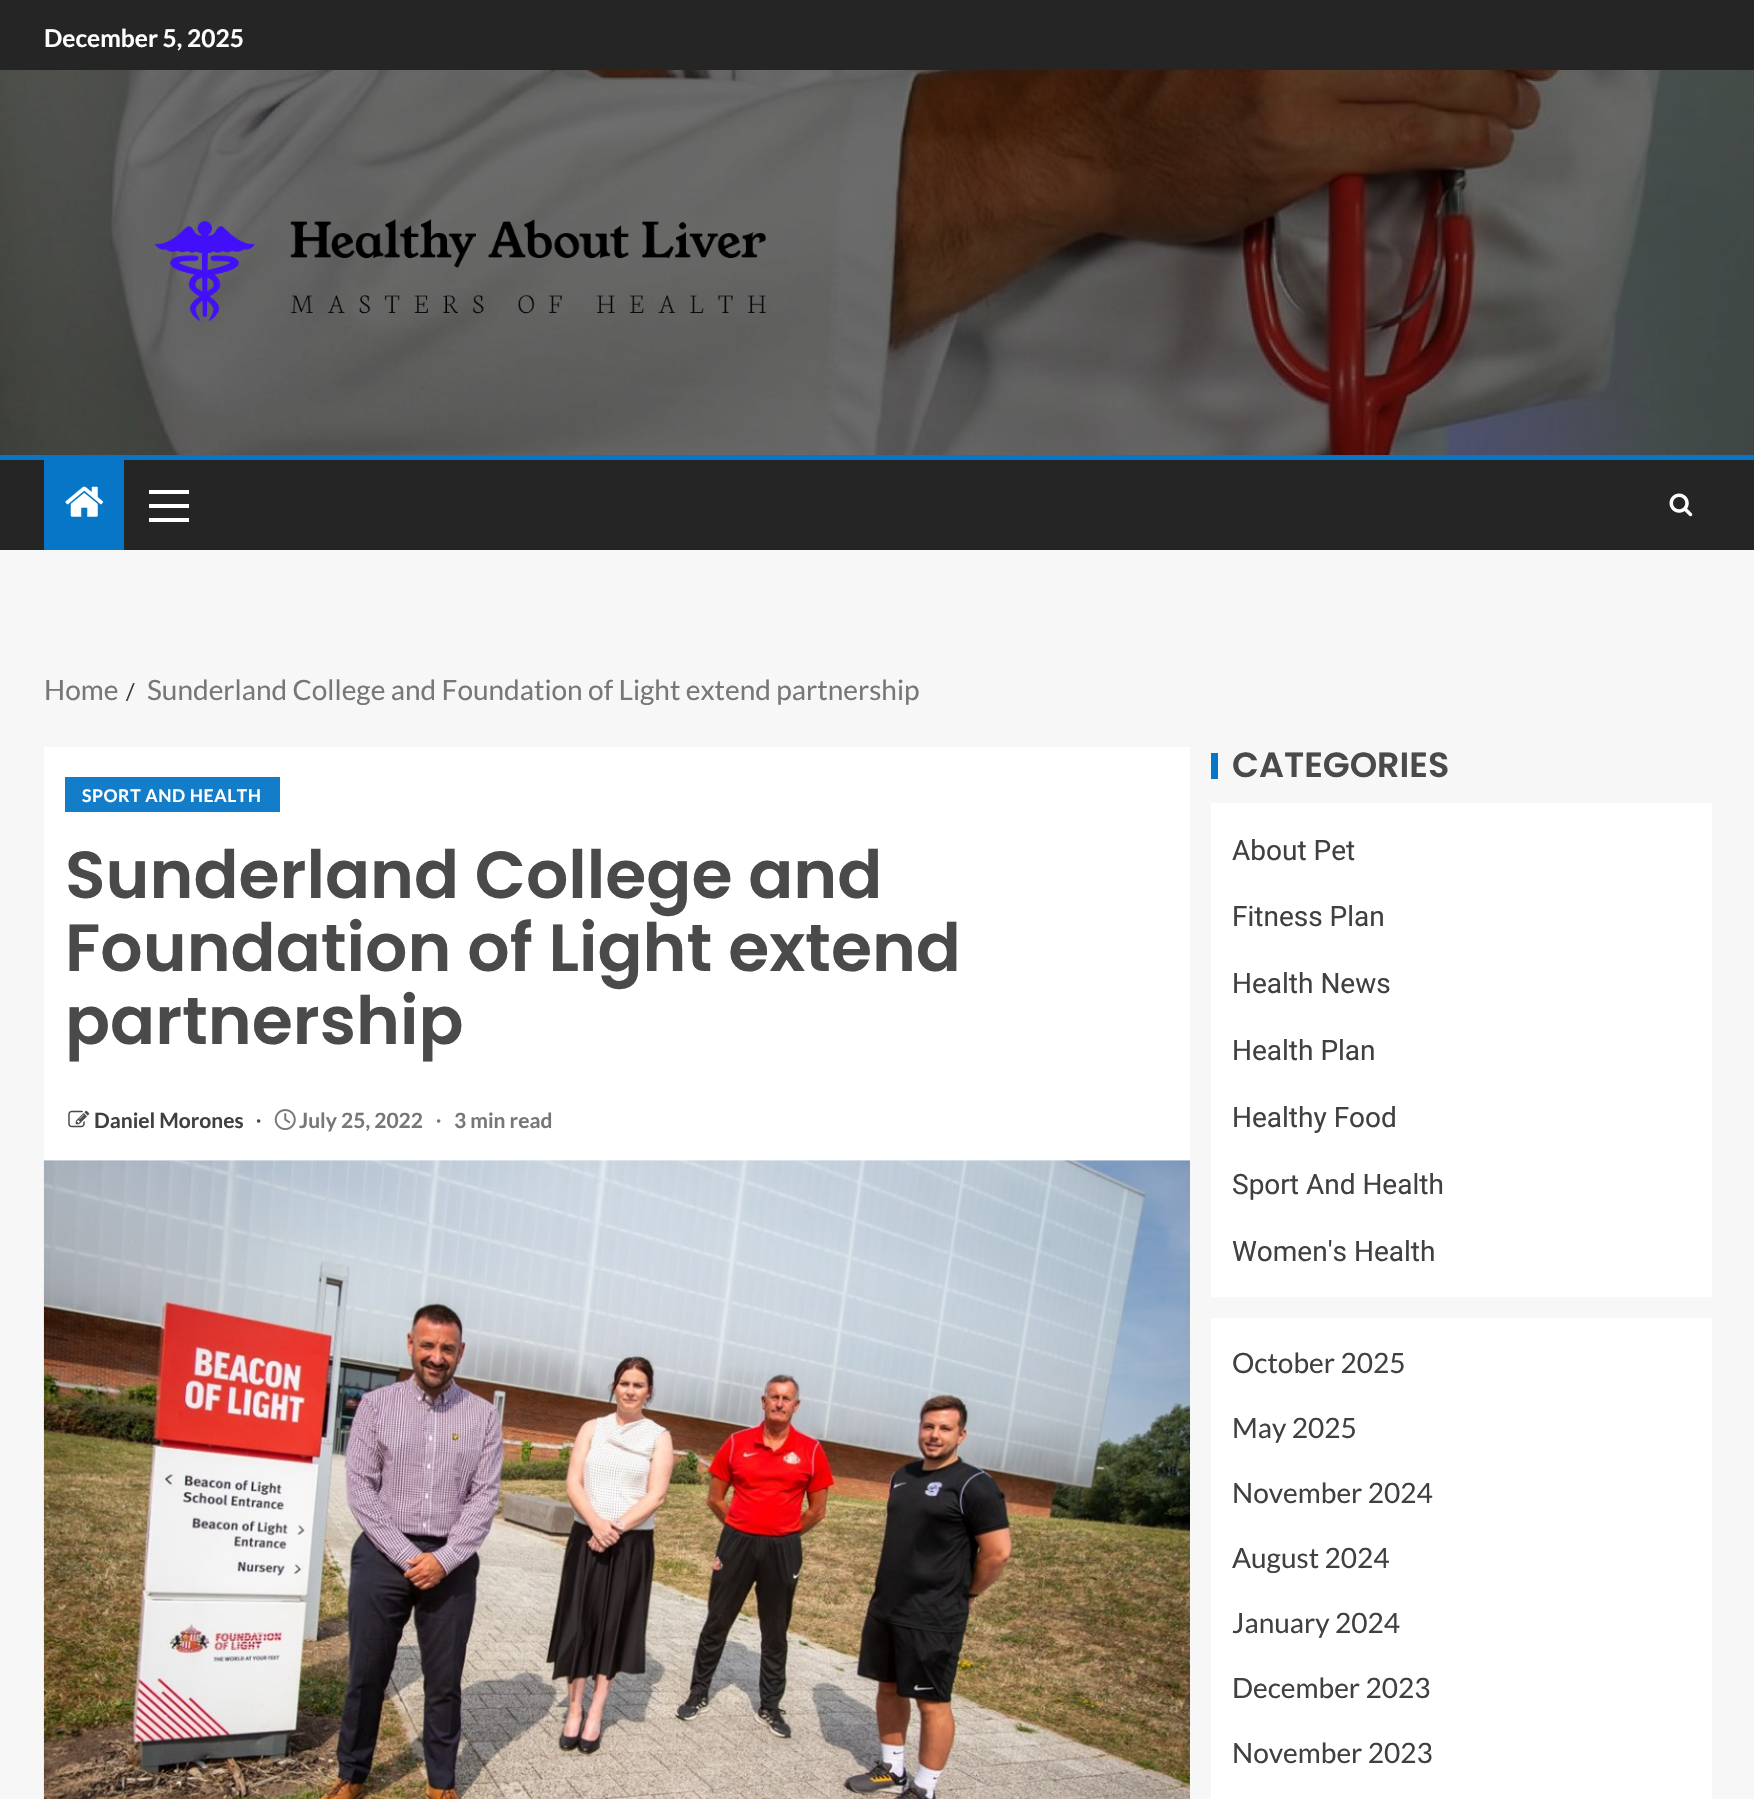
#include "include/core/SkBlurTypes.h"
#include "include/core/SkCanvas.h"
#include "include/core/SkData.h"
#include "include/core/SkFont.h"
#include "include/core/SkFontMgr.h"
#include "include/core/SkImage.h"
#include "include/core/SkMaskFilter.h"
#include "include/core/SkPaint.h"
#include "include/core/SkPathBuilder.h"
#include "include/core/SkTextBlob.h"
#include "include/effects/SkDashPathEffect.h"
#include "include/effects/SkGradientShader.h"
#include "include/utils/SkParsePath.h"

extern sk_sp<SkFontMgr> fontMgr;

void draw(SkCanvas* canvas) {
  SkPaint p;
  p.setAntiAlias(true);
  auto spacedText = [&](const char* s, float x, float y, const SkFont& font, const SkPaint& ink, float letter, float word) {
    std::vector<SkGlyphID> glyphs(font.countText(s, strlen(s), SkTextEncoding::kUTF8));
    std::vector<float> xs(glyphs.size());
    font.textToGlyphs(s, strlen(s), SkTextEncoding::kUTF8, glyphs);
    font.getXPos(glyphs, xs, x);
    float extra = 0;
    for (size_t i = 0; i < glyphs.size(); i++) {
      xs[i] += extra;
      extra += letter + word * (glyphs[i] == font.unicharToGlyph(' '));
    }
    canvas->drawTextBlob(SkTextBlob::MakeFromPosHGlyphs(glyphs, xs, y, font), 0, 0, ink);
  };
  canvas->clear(SkColorSetRGB(247, 247, 247));
  p.setColor(SkColorSetRGB(37, 37, 37));
  canvas->drawRect(SkRect::MakeLTRB(0, 0, 1754, 70), p);
  canvas->drawImageRect(SkImages::DeferredFromEncodedData(SkData::MakeFromFileName("images/1.png")), SkRect::MakeLTRB(0, 70, 1754, 455), SkSamplingOptions());
  canvas->drawImageRect(SkImages::DeferredFromEncodedData(SkData::MakeFromFileName("images/2.png")), SkRect::MakeLTRB(154, 219, 766, 322), SkSamplingOptions());
  canvas->drawRect(SkRect::MakeLTRB(0, 460, 1754, 550), p);
  p.setColor(SkColorSetRGB(7, 118, 198));
  canvas->drawRect(SkRect::MakeLTRB(0, 455, 1754, 460), p);
  canvas->drawRect(SkRect::MakeLTRB(44, 460, 124, 550), p);
  canvas->drawImageRect(SkImages::DeferredFromEncodedData(SkData::MakeFromFileName("images/3.png")), SkRect::MakeLTRB(65, 486, 104, 517), SkSamplingOptions());
  p.setColor(SK_ColorWHITE);
  canvas->drawRect(SkRect::MakeLTRB(149, 504, 189, 508), p);
  canvas->drawRect(SkRect::MakeLTRB(149, 490, 189, 494), p);
  canvas->drawRect(SkRect::MakeLTRB(149, 518, 189, 522), p);
  canvas->drawImageRect(SkImages::DeferredFromEncodedData(SkData::MakeFromFileName("images/4.png")), SkRect::MakeLTRB(1669, 493, 1693, 517), SkSamplingOptions());
  canvas->drawRect(SkRect::MakeLTRB(44, 747, 1190, 1160), p);
  p.setColor(SkColorSetRGB(19, 125, 201));
  canvas->drawRect(SkRect::MakeLTRB(65, 777, 280, 812), p);
  canvas->drawImageRect(SkImages::DeferredFromEncodedData(SkData::MakeFromFileName("images/5.png")), SkRect::MakeLTRB(68, 1110, 90, 1128), SkSamplingOptions());
  canvas->drawImageRect(SkImages::DeferredFromEncodedData(SkData::MakeFromFileName("images/6.png")), SkRect::MakeLTRB(274, 1109, 296, 1131), SkSamplingOptions());
  canvas->drawImageRect(SkImages::DeferredFromEncodedData(SkData::MakeFromFileName("images/7.png")), SkRect::MakeLTRB(43, 1160, 1190, 1799), SkSamplingOptions());
  p.setColor(SkColorSetRGB(7, 118, 198));
  canvas->drawRect(SkRect::MakeLTRB(1211, 753, 1218, 779), p);
  p.setColor(SK_ColorWHITE);
  canvas->drawRect(SkRect::MakeLTRB(1211, 803, 1712, 1297), p);
  canvas->drawRect(SkRect::MakeLTRB(1211, 1318, 1712, 1799), p);
  SkFont font1(fontMgr->matchFamilyStyle("Lato", SkFontStyle::Bold()), 24.5f);
  font1.setSubpixel(true);
  canvas->drawString("December 5, 2025", 44, 47, font1, p);
  SkFont font2(fontMgr->matchFamilyStyle("Lato", SkFontStyle::Normal()), 28);
  font2.setSubpixel(true);
  p.setColor(SkColorSetRGB(119, 119, 119));
  canvas->drawString("Home", 44, 700, font2, p);
  SkFont font3(fontMgr->matchFamilyStyle("Lato", SkFontStyle::Normal()), 23);
  font3.setSubpixel(true);
  p.setColor(SkColorSetRGB(57, 62, 70));
  canvas->drawString("/", 126, 700, font3, p);
  p.setColor(SkColorSetRGB(119, 119, 119));
  canvas->drawString("Sunderland College and Foundation of Light extend partnership", 147, 700, font2, p);
  SkFont font4(fontMgr->matchFamilyStyle("Lato", SkFontStyle::Bold()), 17.5f);
  font4.setSubpixel(true);
  p.setColor(SK_ColorWHITE);
  spacedText("SPORT AND HEALTH", 82, 802, font4, p, 0.6f, 0);
  SkFont font5(fontMgr->matchFamilyStyle("Poppins", SkFontStyle(600, SkFontStyle::kNormal_Width, SkFontStyle::kUpright_Slant)), 66.5f);
  font5.setSubpixel(true);
  p.setColor(SkColorSetRGB(74, 74, 74));
  canvas->drawString("Sunderland College and", 65, 898, font5, p);
  canvas->drawString("Foundation of Light extend", 65, 971, font5, p);
  canvas->drawString("partnership", 65, 1044, font5, p);
  SkFont font6(fontMgr->matchFamilyStyle("Lato", SkFontStyle::Bold()), 21);
  font6.setSubpixel(true);
  p.setColor(SkColorSetRGB(64, 64, 64));
  canvas->drawString("Daniel Morones", 94, 1128, font6, p);
  SkFont font7(fontMgr->matchFamilyStyle("Liberation Serif", SkFontStyle::Bold()), 21);
  font7.setSubpixel(true);
  p.setColor(SkColorSetRGB(74, 74, 74));
  canvas->drawString("∙", 256, 1128, font7, p);
  p.setColor(SkColorSetRGB(119, 119, 119));
  canvas->drawString("July 25, 2022", 299, 1128, font6, p);
  canvas->drawString("∙", 436, 1128, font7, p);
  canvas->drawString("3 min read", 454, 1128, font6, p);
  SkFont font8(fontMgr->matchFamilyStyle("Poppins", SkFontStyle(600, SkFontStyle::kNormal_Width, SkFontStyle::kUpright_Slant)), 35);
  font8.setSubpixel(true);
  p.setColor(SkColorSetRGB(74, 74, 74));
  canvas->drawString("CATEGORIES", 1232, 777, font8, p);
  SkFont font9(fontMgr->matchFamilyStyle("Roboto", SkFontStyle::Normal()), 28);
  font9.setSubpixel(true);
  p.setColor(SkColorSetRGB(64, 64, 64));
  canvas->drawString("About Pet", 1232, 860, font9, p);
  canvas->drawString("Fitness Plan", 1232, 926, font9, p);
  canvas->drawString("Health News", 1232, 993, font9, p);
  canvas->drawString("Health Plan", 1232, 1060, font9, p);
  canvas->drawString("Healthy Food", 1232, 1127, font9, p);
  canvas->drawString("Sport And Health", 1232, 1194, font9, p);
  canvas->drawString("Women's Health", 1232, 1261, font9, p);
  canvas->drawString("October 2025", 1232, 1373, font2, p);
  canvas->drawString("May 2025", 1232, 1438, font2, p);
  canvas->drawString("November 2024", 1232, 1503, font2, p);
  canvas->drawString("August 2024", 1232, 1568, font2, p);
  canvas->drawString("January 2024", 1232, 1633, font2, p);
  canvas->drawString("December 2023", 1232, 1698, font2, p);
  canvas->drawString("November 2023", 1232, 1763, font2, p);
}
